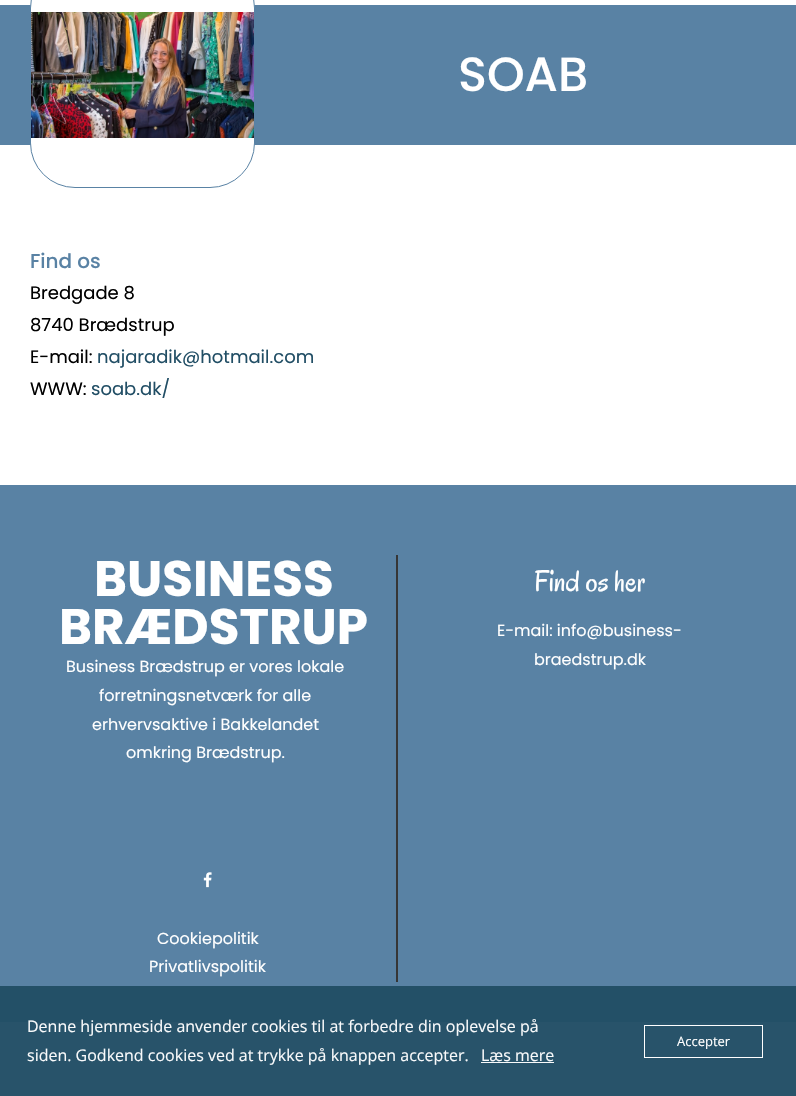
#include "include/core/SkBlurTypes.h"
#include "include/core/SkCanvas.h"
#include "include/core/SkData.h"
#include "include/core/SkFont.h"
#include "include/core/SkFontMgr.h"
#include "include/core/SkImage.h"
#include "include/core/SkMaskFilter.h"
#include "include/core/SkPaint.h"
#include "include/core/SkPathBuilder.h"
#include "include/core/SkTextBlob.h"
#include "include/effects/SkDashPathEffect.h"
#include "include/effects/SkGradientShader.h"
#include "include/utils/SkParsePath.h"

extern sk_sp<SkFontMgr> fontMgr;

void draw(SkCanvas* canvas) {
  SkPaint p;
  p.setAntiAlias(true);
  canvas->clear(SK_ColorWHITE);
  p.setColor(SkColorSetRGB(40, 83, 106));
  canvas->drawRect(SkRect::MakeLTRB(0, 1022, 796, 1096), p);
  p.setColor(SkColorSetRGB(89, 130, 164));
  canvas->drawRect(SkRect::MakeLTRB(0, 5, 796, 145), p);
  p.setColor(SK_ColorWHITE);
  canvas->drawRoundRect(SkRect::MakeLTRB(30.5f, -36.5f, 254.5f, 187.5f), 44.5f, 44.5f, p);
  p.setStyle(SkPaint::kStroke_Style);
  p.setStrokeWidth(1);
  p.setColor(SkColorSetRGB(89, 130, 164));
  canvas->drawRoundRect(SkRect::MakeLTRB(30.5f, -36.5f, 254.5f, 187.5f), 44.5f, 44.5f, p);
  canvas->drawImageRect(SkImages::DeferredFromEncodedData(SkData::MakeFromFileName("images/1.png")), SkRect::MakeLTRB(31, 12, 254, 138), SkSamplingOptions());
  p.setStyle(SkPaint::kFill_Style);
  canvas->drawRect(SkRect::MakeLTRB(0, 485, 796, 986), p);
  p.setColor(SkColorSetRGB(35, 80, 103));
  canvas->drawRect(SkRect::MakeLTRB(0, 986, 796, 1022), p);
  p.setColor(SkColorSetRGB(54, 54, 54));
  canvas->drawRect(SkRect::MakeLTRB(396, 555, 398, 982), p);
  canvas->drawImageRect(SkImages::DeferredFromEncodedData(SkData::MakeFromFileName("images/2.png")), SkRect::MakeLTRB(203, 872, 212, 888), SkSamplingOptions());
  p.setColor(SkColorSetARGB(247, 255, 255, 255));
  canvas->drawRect(SkRect::MakeLTRB(481, 1062, 554, 1063), p);
  p.setStyle(SkPaint::kStroke_Style);
  p.setColor(SK_ColorWHITE);
  canvas->drawRect(SkRect::MakeLTRB(644.5f, 1025.5f, 762.5f, 1057.5f), p);
  SkFont font1(fontMgr->matchFamilyStyle("Poppins", SkFontStyle(500, SkFontStyle::kNormal_Width, SkFontStyle::kUpright_Slant)), 48);
  font1.setSubpixel(true);
  p.setStyle(SkPaint::kFill_Style);
  canvas->drawString("SOAB", 458, 91, font1, p);
  SkFont font2(fontMgr->matchFamilyStyle("Poppins", SkFontStyle(500, SkFontStyle::kNormal_Width, SkFontStyle::kUpright_Slant)), 20);
  font2.setSubpixel(true);
  p.setColor(SkColorSetRGB(89, 130, 164));
  canvas->drawString("Find os", 30, 268, font2, p);
  SkFont font3(fontMgr->matchFamilyStyle("Poppins", SkFontStyle::Normal()), 18);
  font3.setSubpixel(true);
  p.setColor(SK_ColorBLACK);
  canvas->drawString("Bredgade 8", 30, 299, font3, p);
  canvas->drawString("8740 Brædstrup", 30, 331, font3, p);
  canvas->drawString("E-mail:", 30, 363, font3, p);
  p.setColor(SkColorSetRGB(33, 78, 101));
  canvas->drawString("najaradik@hotmail.com", 97, 363, font3, p);
  p.setColor(SK_ColorBLACK);
  canvas->drawString("WWW:", 30, 395, font3, p);
  p.setColor(SkColorSetRGB(33, 78, 101));
  canvas->drawString("soab.dk/", 91, 395, font3, p);
  SkFont font4(fontMgr->matchFamilyStyle("Poppins", SkFontStyle::Bold()), 50);
  font4.setSubpixel(true);
  p.setColor(SK_ColorWHITE);
  canvas->drawString("BUSINESS", 94, 596, font4, p);
  canvas->drawString("BRÆDSTRUP", 59, 644, font4, p);
  SkFont font5(fontMgr->matchFamilyStyle("Poppins", SkFontStyle::Normal()), 16);
  font5.setSubpixel(true);
  canvas->drawString("Business Brædstrup er vores lokale", 66, 672, font5, p);
  canvas->drawString("forretningsnetværk for alle", 99, 701, font5, p);
  canvas->drawString("erhvervsaktive i Bakkelandet", 92, 730, font5, p);
  canvas->drawString("omkring Brædstrup.", 126, 758, font5, p);
  SkFont font6(fontMgr->matchFamilyStyle("Oregano", SkFontStyle::Normal()), 30);
  font6.setSubpixel(true);
  canvas->drawString("Find os her", 534, 591, font6, p);
  canvas->drawString("E-mail: info@business-", 497, 636, font5, p);
  canvas->drawString("braedstrup.dk", 534, 665, font5, p);
  canvas->drawString("Cookiepolitik", 157, 944, font5, p);
  canvas->drawString("Privatlivspolitik", 149, 972, font5, p);
  SkFont font7(fontMgr->matchFamilyStyle("Open Sans", SkFontStyle::Normal()), 16);
  font7.setSubpixel(true);
  p.setColor(SkColorSetRGB(249, 250, 251));
  canvas->drawString("Denne hjemmeside anvender cookies til at forbedre din oplevelse på", 27, 1032, font7, p);
  canvas->drawString("siden. Godkend cookies ved at trykke på knappen accepter.", 27, 1061, font7, p);
  canvas->drawString("Læs mere", 481, 1061, font7, p);
  SkFont font8(fontMgr->matchFamilyStyle("Open Sans", SkFontStyle::Normal()), 13);
  font8.setSubpixel(true);
  p.setColor(SK_ColorWHITE);
  canvas->drawString("Accepter", 677, 1046, font8, p);
}
